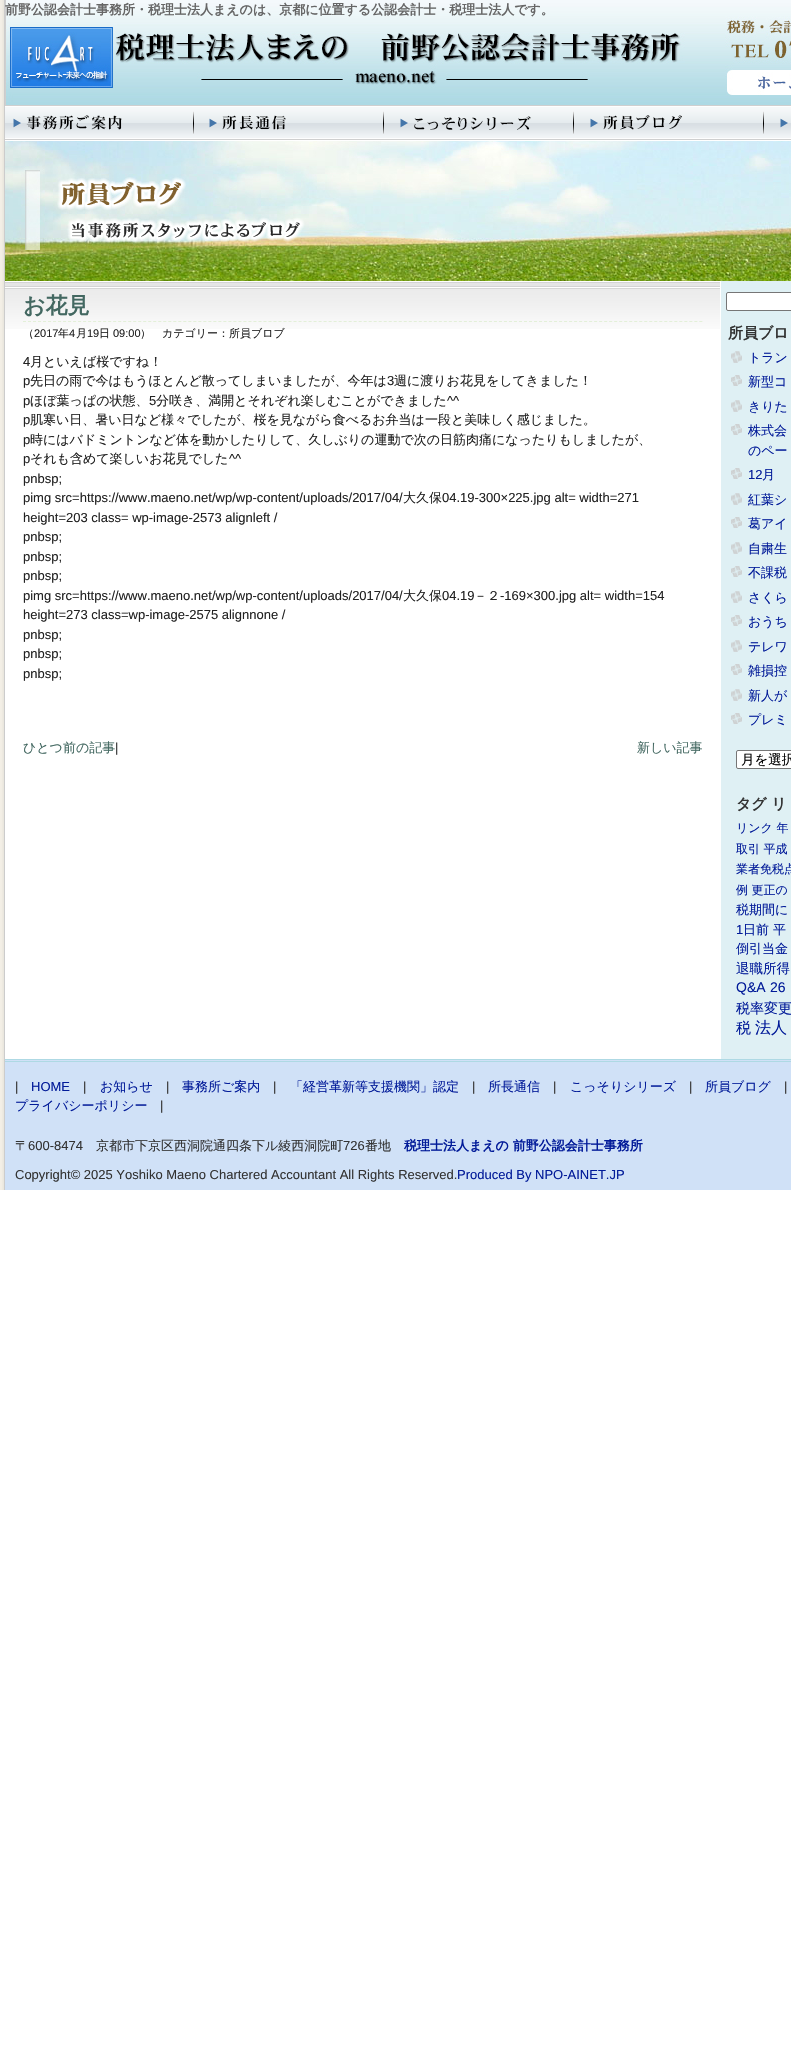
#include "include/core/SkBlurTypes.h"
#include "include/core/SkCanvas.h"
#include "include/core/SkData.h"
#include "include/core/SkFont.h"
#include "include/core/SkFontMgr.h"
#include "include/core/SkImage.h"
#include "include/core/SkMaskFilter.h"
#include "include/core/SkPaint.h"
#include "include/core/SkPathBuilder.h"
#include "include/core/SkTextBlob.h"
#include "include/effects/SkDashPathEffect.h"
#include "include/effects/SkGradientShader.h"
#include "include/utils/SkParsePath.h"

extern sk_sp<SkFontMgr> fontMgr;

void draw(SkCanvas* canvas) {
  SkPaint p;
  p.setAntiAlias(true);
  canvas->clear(SK_ColorWHITE);
  canvas->drawImageRect(SkImages::DeferredFromEncodedData(SkData::MakeFromFileName("images/1.png")), SkRect::MakeLTRB(0, 0, 5, 1190), SkSamplingOptions());
  canvas->drawImageRect(SkImages::DeferredFromEncodedData(SkData::MakeFromFileName("images/2.png")), SkRect::MakeLTRB(5, 0, 791, 105), SkSamplingOptions());
  canvas->drawImageRect(SkImages::DeferredFromEncodedData(SkData::MakeFromFileName("images/3.png")), SkRect::MakeLTRB(5, 105, 195, 140), SkSamplingOptions());
  canvas->drawImageRect(SkImages::DeferredFromEncodedData(SkData::MakeFromFileName("images/4.png")), SkRect::MakeLTRB(195, 105, 385, 140), SkSamplingOptions());
  canvas->drawImageRect(SkImages::DeferredFromEncodedData(SkData::MakeFromFileName("images/5.png")), SkRect::MakeLTRB(385, 105, 575, 140), SkSamplingOptions());
  canvas->drawImageRect(SkImages::DeferredFromEncodedData(SkData::MakeFromFileName("images/6.png")), SkRect::MakeLTRB(575, 105, 765, 140), SkSamplingOptions());
  canvas->drawImageRect(SkImages::DeferredFromEncodedData(SkData::MakeFromFileName("images/7.png")), SkRect::MakeLTRB(765, 105, 791, 140), SkSamplingOptions());
  canvas->drawImageRect(SkImages::DeferredFromEncodedData(SkData::MakeFromFileName("images/8.png")), SkRect::MakeLTRB(5, 141, 791, 281), SkSamplingOptions());
  p.setColor(SkColorSetRGB(223, 240, 244));
  canvas->drawRect(SkRect::MakeLTRB(721, 281, 791, 1059), p);
  canvas->drawImageRect(SkImages::DeferredFromEncodedData(SkData::MakeFromFileName("images/9.png")), SkRect::MakeLTRB(5, 282, 720, 329), SkSamplingOptions());
  p.setStyle(SkPaint::kStroke_Style);
  p.setStrokeWidth(1);
  p.setColor(SkColorSetRGB(227, 240, 216));
  p.setPathEffect(SkDashPathEffect::Make({{3, 2.01f}}, 0));
  canvas->drawPath(SkPathBuilder().moveTo(23, 321.5f).lineTo(703, 321.5f).detach(), p);
  p.setPathEffect(nullptr);
  p.setStyle(SkPaint::kFill_Style);
  p.setColor(SK_ColorWHITE);
  canvas->drawRoundRect(SkRect::MakeLTRB(726.5f, 292.5f, 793.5f, 310.5f), 1.5f, 1.5f, p);
  p.setStyle(SkPaint::kStroke_Style);
  p.setColor(SkColorSetRGB(118, 118, 118));
  canvas->drawRoundRect(SkRect::MakeLTRB(726.5f, 292.5f, 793.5f, 310.5f), 1.5f, 1.5f, p);
  canvas->drawImageRect(SkImages::DeferredFromEncodedData(SkData::MakeFromFileName("images/10.png")), SkRect::MakeLTRB(731, 351, 742, 363), SkSamplingOptions());
  canvas->drawImageRect(SkImages::DeferredFromEncodedData(SkData::MakeFromFileName("images/11.png")), SkRect::MakeLTRB(731, 375, 742, 386), SkSamplingOptions());
  canvas->drawImageRect(SkImages::DeferredFromEncodedData(SkData::MakeFromFileName("images/10.png")), SkRect::MakeLTRB(731, 400, 742, 412), SkSamplingOptions());
  canvas->drawImageRect(SkImages::DeferredFromEncodedData(SkData::MakeFromFileName("images/11.png")), SkRect::MakeLTRB(731, 424, 742, 435), SkSamplingOptions());
  canvas->drawImageRect(SkImages::DeferredFromEncodedData(SkData::MakeFromFileName("images/11.png")), SkRect::MakeLTRB(731, 468, 742, 479), SkSamplingOptions());
  canvas->drawImageRect(SkImages::DeferredFromEncodedData(SkData::MakeFromFileName("images/10.png")), SkRect::MakeLTRB(731, 493, 742, 505), SkSamplingOptions());
  canvas->drawImageRect(SkImages::DeferredFromEncodedData(SkData::MakeFromFileName("images/11.png")), SkRect::MakeLTRB(731, 517, 742, 528), SkSamplingOptions());
  canvas->drawImageRect(SkImages::DeferredFromEncodedData(SkData::MakeFromFileName("images/10.png")), SkRect::MakeLTRB(731, 542, 742, 554), SkSamplingOptions());
  canvas->drawImageRect(SkImages::DeferredFromEncodedData(SkData::MakeFromFileName("images/11.png")), SkRect::MakeLTRB(731, 566, 742, 577), SkSamplingOptions());
  canvas->drawImageRect(SkImages::DeferredFromEncodedData(SkData::MakeFromFileName("images/10.png")), SkRect::MakeLTRB(731, 591, 742, 603), SkSamplingOptions());
  canvas->drawImageRect(SkImages::DeferredFromEncodedData(SkData::MakeFromFileName("images/11.png")), SkRect::MakeLTRB(731, 615, 742, 626), SkSamplingOptions());
  canvas->drawImageRect(SkImages::DeferredFromEncodedData(SkData::MakeFromFileName("images/12.png")), SkRect::MakeLTRB(731, 640, 742, 652), SkSamplingOptions());
  canvas->drawImageRect(SkImages::DeferredFromEncodedData(SkData::MakeFromFileName("images/11.png")), SkRect::MakeLTRB(731, 664, 742, 675), SkSamplingOptions());
  canvas->drawImageRect(SkImages::DeferredFromEncodedData(SkData::MakeFromFileName("images/10.png")), SkRect::MakeLTRB(731, 689, 742, 701), SkSamplingOptions());
  canvas->drawImageRect(SkImages::DeferredFromEncodedData(SkData::MakeFromFileName("images/11.png")), SkRect::MakeLTRB(731, 713, 742, 724), SkSamplingOptions());
  p.setStyle(SkPaint::kFill_Style);
  p.setColor(SK_ColorWHITE);
  canvas->drawRoundRect(SkRect::MakeLTRB(736.5f, 750.5f, 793.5f, 768.5f), 1.5f, 1.5f, p);
  p.setStyle(SkPaint::kStroke_Style);
  p.setColor(SkColorSetRGB(118, 118, 118));
  canvas->drawRoundRect(SkRect::MakeLTRB(736.5f, 750.5f, 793.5f, 768.5f), 1.5f, 1.5f, p);
  p.setStyle(SkPaint::kFill_Style);
  p.setColor(SkColorSetRGB(208, 225, 247));
  canvas->drawRect(SkRect::MakeLTRB(5, 1060, 791, 1190), p);
  p.setColor(SkColorSetRGB(174, 217, 228));
  canvas->drawRect(SkRect::MakeLTRB(5, 1059, 791, 1060), p);
  canvas->drawRect(SkRect::MakeLTRB(5, 1061, 791, 1062), p);
  SkFont font1(fontMgr->matchFamilyStyle("WenQuanYi Zen Hei", SkFontStyle::Bold()), 13);
  font1.setSubpixel(true);
  p.setColor(SkColorSetRGB(102, 102, 102));
  canvas->drawString("前野公認会計士事務所・税理士法人まえのは、京都に位置する公認会計士・税理士法人です。", 5, 14, font1, p);
  SkFont font2(fontMgr->matchFamilyStyle("WenQuanYi Zen Hei", SkFontStyle::Bold()), 22);
  font2.setSubpixel(true);
  p.setColor(SkColorSetRGB(67, 104, 97));
  canvas->drawString("お花見", 23, 313, font2, p);
  SkFont font3(fontMgr->matchFamilyStyle("WenQuanYi Zen Hei", SkFontStyle(500, SkFontStyle::kNormal_Width, SkFontStyle::kUpright_Slant)), 11);
  font3.setSubpixel(true);
  p.setColor(SkColorSetRGB(34, 34, 34));
  canvas->drawString("（", 23, 337, font3, p);
  SkFont font4(fontMgr->matchFamilyStyle("Liberation Sans", SkFontStyle::Normal()), 11);
  font4.setSubpixel(true);
  canvas->drawString("2017", 34, 337, font4, p);
  canvas->drawString("年", 58, 337, font3, p);
  canvas->drawString("4", 69, 337, font4, p);
  canvas->drawString("月", 76, 337, font3, p);
  canvas->drawString("19", 87, 337, font4, p);
  canvas->drawString("日", 99, 337, font3, p);
  canvas->drawString("09:00", 113, 337, font4, p);
  canvas->drawString("）　カテゴリー：所員ブロブ", 140, 337, font3, p);
  SkFont font5(fontMgr->matchFamilyStyle("Liberation Sans", SkFontStyle::Normal()), 13);
  font5.setSubpixel(true);
  canvas->drawString("4", 23, 366, font5, p);
  SkFont font6(fontMgr->matchFamilyStyle("WenQuanYi Zen Hei", SkFontStyle(500, SkFontStyle::kNormal_Width, SkFontStyle::kUpright_Slant)), 13);
  font6.setSubpixel(true);
  canvas->drawString("月といえば桜ですね！", 30, 366, font6, p);
  canvas->drawString("p", 23, 385, font5, p);
  canvas->drawString("先日の雨で今はもうほとんど散ってしまいましたが、今年は", 30, 385, font6, p);
  canvas->drawString("3", 387, 385, font5, p);
  canvas->drawString("週に渡りお花見をしてきました！", 394, 385, font6, p);
  canvas->drawString("p", 23, 405, font5, p);
  canvas->drawString("ほぼ葉っぱの状態、", 30, 405, font6, p);
  canvas->drawString("5", 149, 405, font5, p);
  canvas->drawString("分咲き、満開とそれぞれ楽しむことができました", 156, 405, font6, p);
  canvas->drawString("^^", 447, 405, font5, p);
  canvas->drawString("p", 23, 424, font5, p);
  canvas->drawString("肌寒い日、暑い日など様々でしたが、桜を見ながら食べるお弁当は一段と美味しく感じました。", 30, 424, font6, p);
  canvas->drawString("p", 23, 444, font5, p);
  canvas->drawString("時にはバドミントンなど体を動かしたりして、久しぶりの運動で次の日筋肉痛になったりもしましたが、", 30, 444, font6, p);
  canvas->drawString("p", 23, 463, font5, p);
  canvas->drawString("それも含めて楽しいお花見でした", 30, 463, font6, p);
  canvas->drawString("^^", 229, 463, font5, p);
  canvas->drawString("pnbsp;", 23, 483, font5, p);
  canvas->drawString("pimg src=https://www.maeno.net/wp/wp-content/uploads/2017/04/", 23, 502, font5, p);
  canvas->drawString("大久保", 403, 502, font6, p);
  canvas->drawString("04.19-300×225.jpg alt= width=271", 442, 502, font5, p);
  canvas->drawString("height=203 class= wp-image-2573 alignleft /", 23, 522, font5, p);
  canvas->drawString("pnbsp;", 23, 541, font5, p);
  canvas->drawString("pnbsp;", 23, 561, font5, p);
  canvas->drawString("pnbsp;", 23, 580, font5, p);
  canvas->drawString("pimg src=https://www.maeno.net/wp/wp-content/uploads/2017/04/", 23, 600, font5, p);
  canvas->drawString("大久保", 403, 600, font6, p);
  canvas->drawString("04.19", 442, 600, font5, p);
  canvas->drawString("－２", 474, 600, font6, p);
  canvas->drawString("-169×300.jpg alt= width=154", 500, 600, font5, p);
  canvas->drawString("height=273 class=wp-image-2575 alignnone /", 23, 619, font5, p);
  canvas->drawString("pnbsp;", 23, 639, font5, p);
  canvas->drawString("pnbsp;", 23, 658, font5, p);
  canvas->drawString("pnbsp;", 23, 678, font5, p);
  p.setColor(SkColorSetRGB(67, 104, 97));
  canvas->drawString("ひとつ前の記事", 23, 752, font6, p);
  p.setColor(SkColorSetRGB(51, 51, 51));
  canvas->drawString("|", 115, 752, font5, p);
  p.setColor(SkColorSetRGB(67, 104, 97));
  canvas->drawString("新しい記事", 637, 752, font6, p);
  SkFont font7(fontMgr->matchFamilyStyle("WenQuanYi Zen Hei", SkFontStyle::Bold()), 15);
  font7.setSubpixel(true);
  p.setColor(SkColorSetRGB(51, 51, 51));
  canvas->drawString("所員ブロ", 728, 338, font7, p);
  p.setColor(SkColorSetRGB(2, 27, 153));
  canvas->drawString("トラン", 748, 362, font6, p);
  canvas->drawString("新型コ", 748, 386, font6, p);
  canvas->drawString("きりた", 748, 411, font6, p);
  canvas->drawString("株式会", 748, 435, font6, p);
  canvas->drawString("のペー", 748, 455, font6, p);
  canvas->drawString("12", 748, 479, font5, p);
  canvas->drawString("月", 762, 479, font6, p);
  canvas->drawString("紅葉シ", 748, 504, font6, p);
  canvas->drawString("葛アイ", 748, 528, font6, p);
  canvas->drawString("自粛生", 748, 553, font6, p);
  canvas->drawString("不課税", 748, 577, font6, p);
  canvas->drawString("さくら", 748, 602, font6, p);
  canvas->drawString("おうち", 748, 626, font6, p);
  canvas->drawString("テレワ", 748, 651, font6, p);
  canvas->drawString("雑損控", 748, 675, font6, p);
  canvas->drawString("新人が", 748, 700, font6, p);
  canvas->drawString("プレミ", 748, 724, font6, p);
  SkFont font8(fontMgr->matchFamilyStyle("WenQuanYi Zen Hei", SkFontStyle(500, SkFontStyle::kNormal_Width, SkFontStyle::kUpright_Slant)), 13.5f);
  font8.setSubpixel(true);
  p.setColor(SK_ColorBLACK);
  canvas->drawString("月を選択", 741, 764, font8, p);
  p.setColor(SkColorSetRGB(51, 51, 51));
  canvas->drawString("タグ リ", 736, 809, font7, p);
  SkFont font9(fontMgr->matchFamilyStyle("WenQuanYi Zen Hei", SkFontStyle(500, SkFontStyle::kNormal_Width, SkFontStyle::kUpright_Slant)), 12);
  font9.setSubpixel(true);
  p.setColor(SkColorSetRGB(2, 27, 153));
  canvas->drawString("リンク 年", 736, 832, font9, p);
  canvas->drawString("取引 平成", 736, 853, font9, p);
  canvas->drawString("業者免税点", 736, 873, font9, p);
  canvas->drawString("例 更正の", 736, 894, font9, p);
  canvas->drawString("税期間に", 736, 914, font6, p);
  canvas->drawString("1", 736, 934, font5, p);
  canvas->drawString("日前 平", 743, 934, font6, p);
  canvas->drawString("倒引当金", 736, 953, font6, p);
  canvas->drawString("退職所得", 736, 973, font8, p);
  SkFont font10(fontMgr->matchFamilyStyle("Liberation Sans", SkFontStyle::Normal()), 14);
  font10.setSubpixel(true);
  canvas->drawString("Q&A", 736, 992, font10, p);
  canvas->drawString("26", 770, 992, font10, p);
  SkFont font11(fontMgr->matchFamilyStyle("WenQuanYi Zen Hei", SkFontStyle(500, SkFontStyle::kNormal_Width, SkFontStyle::kUpright_Slant)), 14);
  font11.setSubpixel(true);
  canvas->drawString("税率変更", 736, 1013, font11, p);
  SkFont font12(fontMgr->matchFamilyStyle("WenQuanYi Zen Hei", SkFontStyle(500, SkFontStyle::kNormal_Width, SkFontStyle::kUpright_Slant)), 15);
  font12.setSubpixel(true);
  canvas->drawString("税", 736, 1033, font12, p);
  SkFont font13(fontMgr->matchFamilyStyle("WenQuanYi Zen Hei", SkFontStyle(500, SkFontStyle::kNormal_Width, SkFontStyle::kUpright_Slant)), 16);
  font13.setSubpixel(true);
  canvas->drawString("法人", 755, 1033, font13, p);
  p.setColor(SkColorSetRGB(51, 51, 51));
  canvas->drawString("|", 15, 1091, font5, p);
  p.setColor(SkColorSetRGB(2, 27, 153));
  canvas->drawString("HOME", 31, 1091, font5, p);
  p.setColor(SkColorSetRGB(51, 51, 51));
  canvas->drawString("|", 83, 1091, font5, p);
  p.setColor(SkColorSetRGB(2, 27, 153));
  canvas->drawString("お知らせ", 100, 1091, font6, p);
  p.setColor(SkColorSetRGB(51, 51, 51));
  canvas->drawString("|", 166, 1091, font5, p);
  p.setColor(SkColorSetRGB(2, 27, 153));
  canvas->drawString("事務所ご案内", 182, 1091, font6, p);
  p.setColor(SkColorSetRGB(51, 51, 51));
  canvas->drawString("|", 273, 1091, font5, p);
  p.setColor(SkColorSetRGB(2, 27, 153));
  canvas->drawString("「経営革新等支援機関」認定", 290, 1091, font6, p);
  p.setColor(SkColorSetRGB(51, 51, 51));
  canvas->drawString("|", 472, 1091, font5, p);
  p.setColor(SkColorSetRGB(2, 27, 153));
  canvas->drawString("所長通信", 488, 1091, font6, p);
  p.setColor(SkColorSetRGB(51, 51, 51));
  canvas->drawString("|", 553, 1091, font5, p);
  p.setColor(SkColorSetRGB(2, 27, 153));
  canvas->drawString("こっそりシリーズ", 570, 1091, font6, p);
  p.setColor(SkColorSetRGB(51, 51, 51));
  canvas->drawString("|", 689, 1091, font5, p);
  p.setColor(SkColorSetRGB(2, 27, 153));
  canvas->drawString("所員ブログ", 705, 1091, font6, p);
  p.setColor(SkColorSetRGB(51, 51, 51));
  canvas->drawString("|", 784, 1091, font5, p);
  p.setColor(SkColorSetRGB(2, 27, 153));
  canvas->drawString("プライバシーポリシー", 15, 1110, font6, p);
  p.setColor(SkColorSetRGB(51, 51, 51));
  canvas->drawString("|", 160, 1110, font5, p);
  canvas->drawString("〒", 15, 1150, font6, p);
  canvas->drawString("600-8474", 28, 1150, font5, p);
  canvas->drawString("京都市下京区西洞院通四条下ル綾西洞院町", 96, 1150, font6, p);
  canvas->drawString("726", 343, 1150, font5, p);
  canvas->drawString("番地", 365, 1150, font6, p);
  p.setColor(SkColorSetRGB(2, 27, 153));
  canvas->drawString("税理士法人まえの 前野公認会計士事務所", 404, 1150, font1, p);
  p.setColor(SkColorSetRGB(51, 51, 51));
  canvas->drawString("Copyright© 2025 Yoshiko Maeno Chartered Accountant All Rights Reserved.", 15, 1179, font5, p);
  p.setColor(SkColorSetRGB(2, 27, 153));
  canvas->drawString("Produced By NPO-AINET.JP", 457, 1179, font5, p);
}
